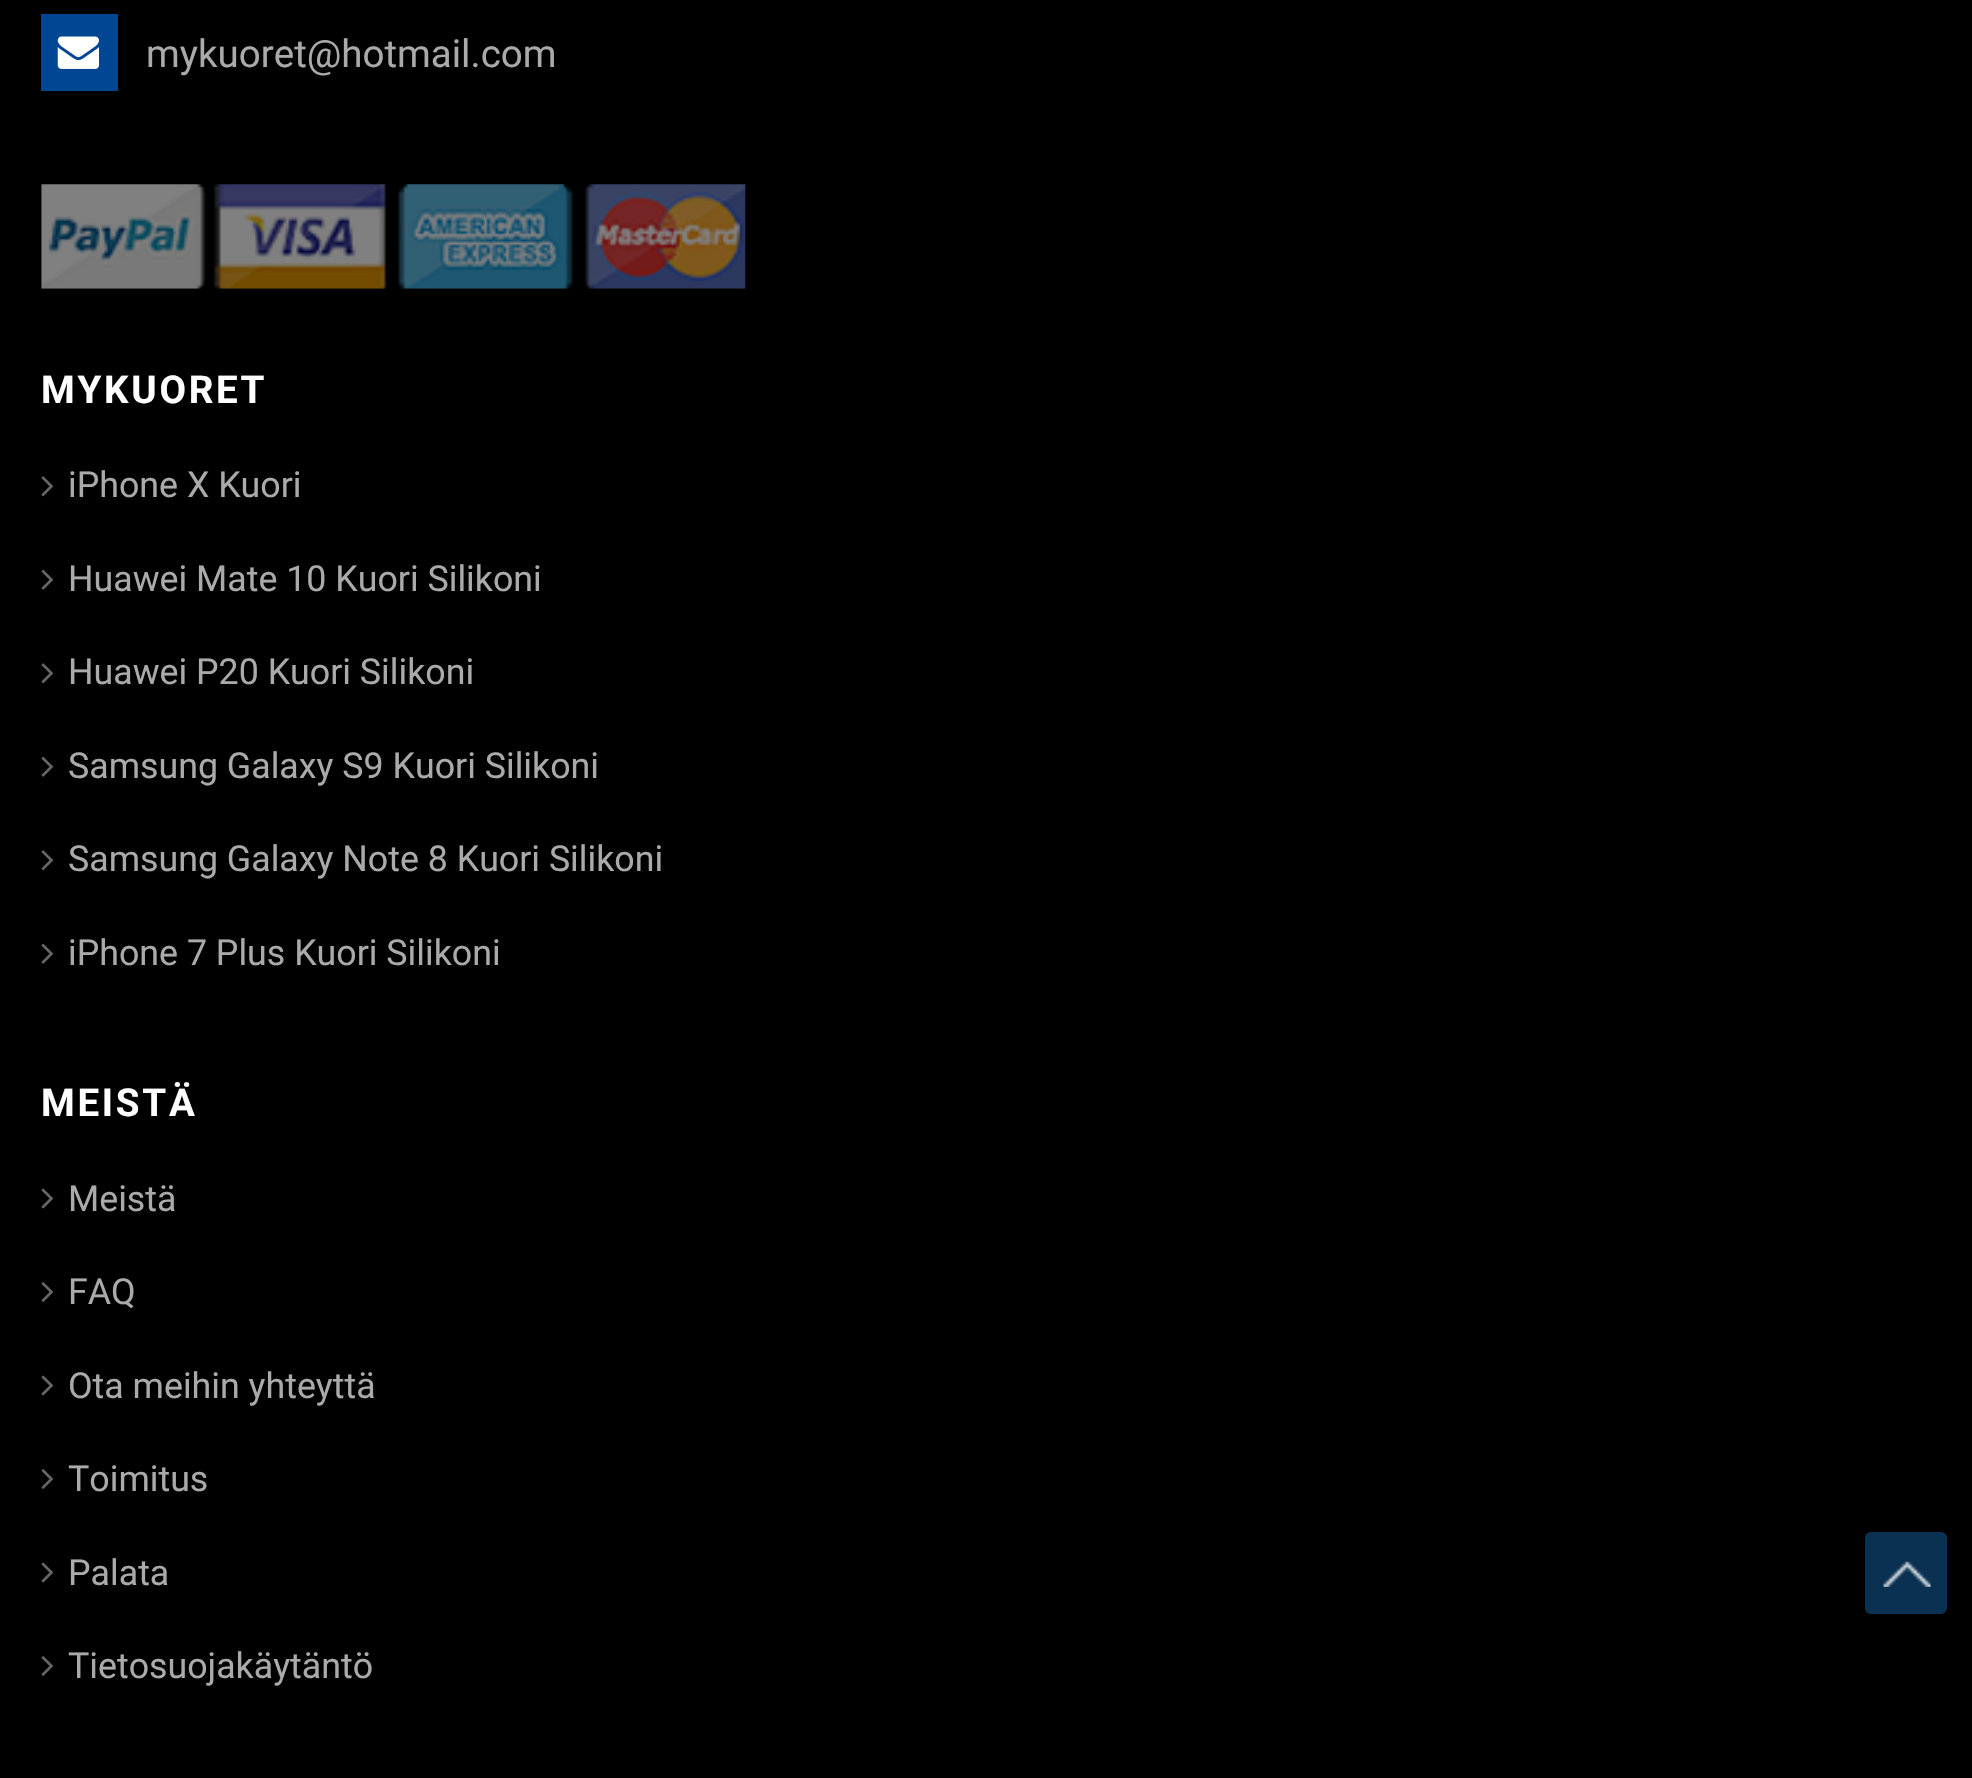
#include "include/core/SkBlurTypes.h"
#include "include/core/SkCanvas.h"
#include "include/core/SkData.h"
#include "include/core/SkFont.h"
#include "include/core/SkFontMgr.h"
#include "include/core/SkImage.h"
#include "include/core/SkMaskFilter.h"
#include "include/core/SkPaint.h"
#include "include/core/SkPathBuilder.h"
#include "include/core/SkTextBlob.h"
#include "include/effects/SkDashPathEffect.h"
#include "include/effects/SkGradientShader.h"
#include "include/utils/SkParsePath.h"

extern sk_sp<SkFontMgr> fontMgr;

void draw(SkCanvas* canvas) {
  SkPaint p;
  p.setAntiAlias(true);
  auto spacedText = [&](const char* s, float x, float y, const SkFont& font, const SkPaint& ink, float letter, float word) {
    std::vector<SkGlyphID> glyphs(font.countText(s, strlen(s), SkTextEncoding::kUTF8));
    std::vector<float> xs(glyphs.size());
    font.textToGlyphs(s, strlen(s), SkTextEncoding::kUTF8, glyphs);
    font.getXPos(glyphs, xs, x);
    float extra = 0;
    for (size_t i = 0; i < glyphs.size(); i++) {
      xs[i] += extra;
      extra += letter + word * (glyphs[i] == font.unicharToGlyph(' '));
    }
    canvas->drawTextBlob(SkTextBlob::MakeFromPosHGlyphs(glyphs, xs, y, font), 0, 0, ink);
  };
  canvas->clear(SK_ColorBLACK);
  p.setColor(SkColorSetRGB(1, 70, 147));
  canvas->drawRect(SkRect::MakeLTRB(41, 14, 118, 91), p);
  canvas->drawImageRect(SkImages::DeferredFromEncodedData(SkData::MakeFromFileName("images/1.png")), SkRect::MakeLTRB(57, 36, 99, 69), SkSamplingOptions());
  canvas->drawImageRect(SkImages::DeferredFromEncodedData(SkData::MakeFromFileName("images/2.png")), SkRect::MakeLTRB(41, 184, 746, 289), SkSamplingOptions());
  canvas->drawImageRect(SkImages::DeferredFromEncodedData(SkData::MakeFromFileName("images/3.png")), SkRect::MakeLTRB(41, 476, 53, 497), SkSamplingOptions());
  canvas->drawImageRect(SkImages::DeferredFromEncodedData(SkData::MakeFromFileName("images/4.png")), SkRect::MakeLTRB(41, 569, 53, 590), SkSamplingOptions());
  canvas->drawImageRect(SkImages::DeferredFromEncodedData(SkData::MakeFromFileName("images/3.png")), SkRect::MakeLTRB(41, 663, 53, 684), SkSamplingOptions());
  canvas->drawImageRect(SkImages::DeferredFromEncodedData(SkData::MakeFromFileName("images/4.png")), SkRect::MakeLTRB(41, 756, 53, 777), SkSamplingOptions());
  canvas->drawImageRect(SkImages::DeferredFromEncodedData(SkData::MakeFromFileName("images/3.png")), SkRect::MakeLTRB(41, 850, 53, 871), SkSamplingOptions());
  canvas->drawImageRect(SkImages::DeferredFromEncodedData(SkData::MakeFromFileName("images/4.png")), SkRect::MakeLTRB(41, 943, 53, 964), SkSamplingOptions());
  canvas->drawImageRect(SkImages::DeferredFromEncodedData(SkData::MakeFromFileName("images/5.png")), SkRect::MakeLTRB(41, 1188, 53, 1209), SkSamplingOptions());
  canvas->drawImageRect(SkImages::DeferredFromEncodedData(SkData::MakeFromFileName("images/6.png")), SkRect::MakeLTRB(41, 1282, 53, 1302), SkSamplingOptions());
  canvas->drawImageRect(SkImages::DeferredFromEncodedData(SkData::MakeFromFileName("images/5.png")), SkRect::MakeLTRB(41, 1375, 53, 1396), SkSamplingOptions());
  canvas->drawImageRect(SkImages::DeferredFromEncodedData(SkData::MakeFromFileName("images/6.png")), SkRect::MakeLTRB(41, 1469, 53, 1489), SkSamplingOptions());
  canvas->drawImageRect(SkImages::DeferredFromEncodedData(SkData::MakeFromFileName("images/5.png")), SkRect::MakeLTRB(41, 1562, 53, 1583), SkSamplingOptions());
  canvas->drawImageRect(SkImages::DeferredFromEncodedData(SkData::MakeFromFileName("images/6.png")), SkRect::MakeLTRB(41, 1656, 53, 1676), SkSamplingOptions());
  p.setColor(SkColorSetRGB(10, 49, 81));
  canvas->drawRoundRect(SkRect::MakeLTRB(1865, 1532, 1947, 1614), 6, 6, p);
  canvas->drawImageRect(SkImages::DeferredFromEncodedData(SkData::MakeFromFileName("images/7.png")), SkRect::MakeLTRB(1883, 1561, 1931, 1587), SkSamplingOptions());
  SkFont font1(fontMgr->matchFamilyStyle("Roboto", SkFontStyle::Normal()), 38.5f);
  font1.setSubpixel(true);
  p.setColor(SkColorSetRGB(170, 170, 170));
  canvas->drawString("mykuoret@hotmail.com", 146, 67, font1, p);
  SkFont font2(fontMgr->matchFamilyStyle("Roboto", SkFontStyle::Bold()), 38.5f);
  font2.setSubpixel(true);
  p.setColor(SK_ColorWHITE);
  spacedText("MYKUORET", 41, 403, font2, p, 2.75f, 0);
  SkFont font3(fontMgr->matchFamilyStyle("Roboto", SkFontStyle::Normal()), 35.75f);
  font3.setSubpixel(true);
  p.setColor(SkColorSetRGB(170, 170, 170));
  canvas->drawString("iPhone X Kuori", 68, 497, font3, p);
  canvas->drawString("Huawei Mate 10 Kuori Silikoni", 68, 591, font3, p);
  canvas->drawString("Huawei P20 Kuori Silikoni", 68, 684, font3, p);
  canvas->drawString("Samsung Galaxy S9 Kuori Silikoni", 68, 778, font3, p);
  canvas->drawString("Samsung Galaxy Note 8 Kuori Silikoni", 68, 871, font3, p);
  canvas->drawString("iPhone 7 Plus Kuori Silikoni", 68, 965, font3, p);
  p.setColor(SK_ColorWHITE);
  spacedText("MEISTÄ", 41, 1116, font2, p, 2.75f, 0);
  p.setColor(SkColorSetRGB(170, 170, 170));
  canvas->drawString("Meistä", 68, 1211, font3, p);
  canvas->drawString("FAQ", 68, 1304, font3, p);
  canvas->drawString("Ota meihin yhteyttä", 68, 1398, font3, p);
  canvas->drawString("Toimitus", 68, 1491, font3, p);
  canvas->drawString("Palata", 68, 1585, font3, p);
  canvas->drawString("Tietosuojakäytäntö", 68, 1678, font3, p);
}
